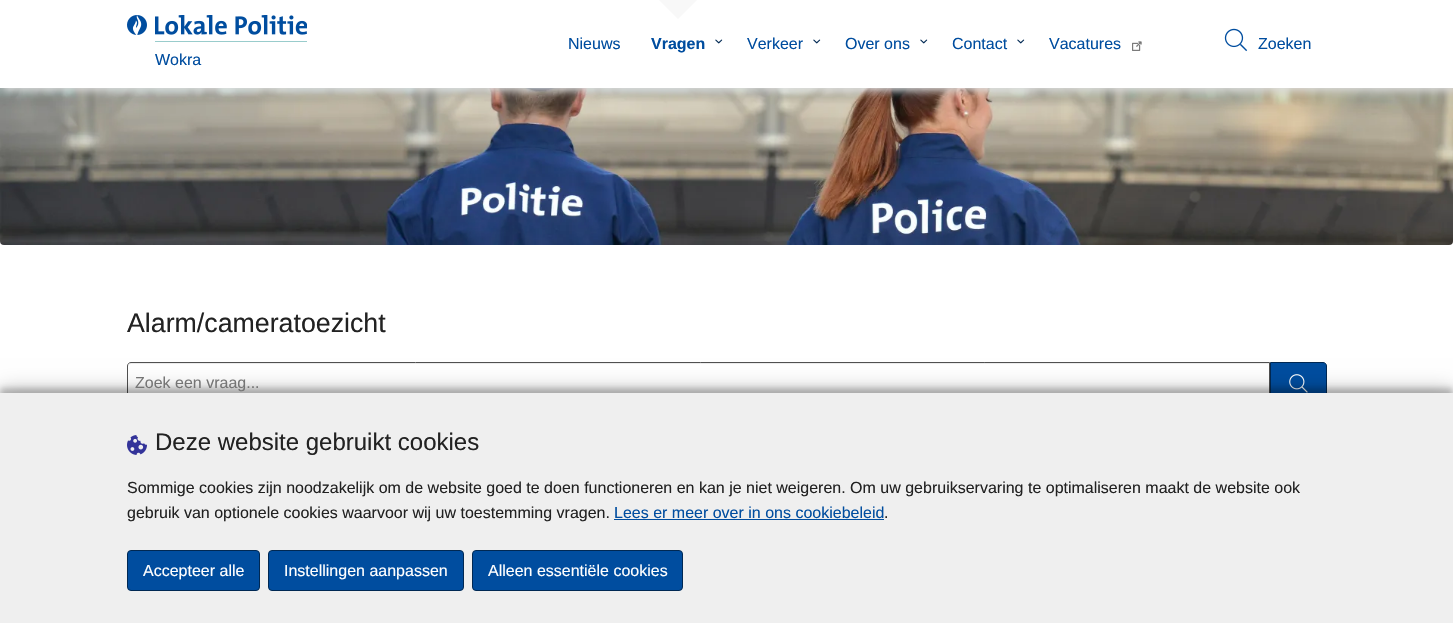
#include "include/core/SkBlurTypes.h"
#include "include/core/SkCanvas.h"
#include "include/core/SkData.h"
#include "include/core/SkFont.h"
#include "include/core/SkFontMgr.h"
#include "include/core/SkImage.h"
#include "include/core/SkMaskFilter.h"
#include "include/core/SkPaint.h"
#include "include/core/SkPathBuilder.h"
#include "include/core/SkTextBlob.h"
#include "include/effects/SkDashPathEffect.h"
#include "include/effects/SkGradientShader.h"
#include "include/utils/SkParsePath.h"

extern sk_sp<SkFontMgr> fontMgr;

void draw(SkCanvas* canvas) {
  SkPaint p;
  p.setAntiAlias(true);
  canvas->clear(SK_ColorWHITE);
  canvas->drawImageRect(SkImages::DeferredFromEncodedData(SkData::MakeFromFileName("images/6.png")), SkRect::MakeLTRB(0, 88, 1453, 245), SkSamplingOptions());
  p.setColor(SkColorSetRGB(220, 220, 220));
  p.setMaskFilter(SkMaskFilter::MakeBlur(kNormal_SkBlurStyle, 4));
  canvas->drawRect(SkRect::MakeLTRB(2, -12, 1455, 91), p);
  p.setMaskFilter(nullptr);
  p.setColor(SK_ColorWHITE);
  canvas->drawRect(SkRect::MakeLTRB(0, 0, 1453, 88), p);
  p.setColor(SkColorSetRGB(248, 248, 248));
  canvas->drawPath(SkPathBuilder().moveTo(658, -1).lineTo(698, -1).lineTo(678, 19).close().detach(), p);
  canvas->drawImageRect(SkImages::DeferredFromEncodedData(SkData::MakeFromFileName("images/1.png")), SkRect::MakeLTRB(715, 39, 723, 44), SkSamplingOptions());
  canvas->drawImageRect(SkImages::DeferredFromEncodedData(SkData::MakeFromFileName("images/1.png")), SkRect::MakeLTRB(813, 39, 821, 44), SkSamplingOptions());
  canvas->drawImageRect(SkImages::DeferredFromEncodedData(SkData::MakeFromFileName("images/1.png")), SkRect::MakeLTRB(920, 39, 928, 44), SkSamplingOptions());
  canvas->drawImageRect(SkImages::DeferredFromEncodedData(SkData::MakeFromFileName("images/1.png")), SkRect::MakeLTRB(1017, 39, 1025, 44), SkSamplingOptions());
  canvas->drawImageRect(SkImages::DeferredFromEncodedData(SkData::MakeFromFileName("images/2.png")), SkRect::MakeLTRB(1132, 41, 1142, 51), SkSamplingOptions());
  canvas->drawImageRect(SkImages::DeferredFromEncodedData(SkData::MakeFromFileName("images/3.png")), SkRect::MakeLTRB(1224, 28, 1248, 52), SkSamplingOptions());
  canvas->drawImageRect(SkImages::DeferredFromEncodedData(SkData::MakeFromFileName("images/4.png")), SkRect::MakeLTRB(127, 15, 147, 35), SkSamplingOptions());
  canvas->drawImageRect(SkImages::DeferredFromEncodedData(SkData::MakeFromFileName("images/5.png")), SkRect::MakeLTRB(155, 15, 307, 42), SkSamplingOptions());
  p.setColor(SkColorSetRGB(236, 236, 236));
  canvas->drawPath(SkPathBuilder().moveTo(131, 364).lineTo(1269, 364).lineTo(1269, 363).lineTo(131, 363).cubicTo(129, 363, 128, 365, 128, 367).cubicTo(128, 365, 129, 364, 131, 364).close().detach(), p);
  p.setStyle(SkPaint::kStroke_Style);
  p.setStrokeWidth(1);
  p.setColor(SkColorSetRGB(80, 80, 80));
  canvas->drawPath(SkPathBuilder().moveTo(131, 362.5f).lineTo(1269.5f, 362.5f).lineTo(1269.5f, 402.5f).lineTo(131, 402.5f).cubicTo(129, 402.5f, 127.5f, 401, 127.5f, 399).lineTo(127.5f, 366).cubicTo(127.5f, 364, 129, 362.5f, 131, 362.5f).close().detach(), p);
  p.setStyle(SkPaint::kFill_Style);
  p.setColor(SkColorSetRGB(0, 77, 159));
  canvas->drawPath(SkPathBuilder().moveTo(1270.5f, 362.5f).lineTo(1323, 362.5f).cubicTo(1325, 362.5f, 1326.5f, 364, 1326.5f, 366).lineTo(1326.5f, 399).cubicTo(1326.5f, 401, 1325, 402.5f, 1323, 402.5f).lineTo(1270.5f, 402.5f).close().detach(), p);
  p.setStyle(SkPaint::kStroke_Style);
  p.setColor(SkColorSetRGB(0, 40, 83));
  canvas->drawPath(SkPathBuilder().moveTo(1270.5f, 362.5f).lineTo(1323, 362.5f).cubicTo(1325, 362.5f, 1326.5f, 364, 1326.5f, 366).lineTo(1326.5f, 399).cubicTo(1326.5f, 401, 1325, 402.5f, 1323, 402.5f).lineTo(1270.5f, 402.5f).close().detach(), p);
  canvas->drawImageRect(SkImages::DeferredFromEncodedData(SkData::MakeFromFileName("images/7.png")), SkRect::MakeLTRB(1289, 374, 1308, 393), SkSamplingOptions());
  p.setStyle(SkPaint::kFill_Style);
  p.setColor(SkColorSetARGB(59, 0, 0, 0));
  p.setMaskFilter(SkMaskFilter::MakeBlur(kNormal_SkBlurStyle, 3));
  canvas->drawRect(SkRect::MakeLTRB(0, 388, 1453, 618), p);
  p.setMaskFilter(nullptr);
  p.setColor(SkColorSetARGB(48, 0, 0, 0));
  p.setMaskFilter(SkMaskFilter::MakeBlur(kNormal_SkBlurStyle, 10));
  canvas->drawRect(SkRect::MakeLTRB(0, 388, 1453, 618), p);
  p.setMaskFilter(nullptr);
  p.setColor(SkColorSetRGB(239, 239, 239));
  canvas->drawRect(SkRect::MakeLTRB(0, 393, 1453, 623), p);
  canvas->drawImageRect(SkImages::DeferredFromEncodedData(SkData::MakeFromFileName("images/8.png")), SkRect::MakeLTRB(127, 435, 147, 455), SkSamplingOptions());
  p.setColor(SkColorSetRGB(0, 77, 159));
  canvas->drawRect(SkRect::MakeLTRB(614, 519, 884, 520), p);
  canvas->drawRoundRect(SkRect::MakeLTRB(127.5f, 550.5f, 259.5f, 590.5f), 3.5f, 3.5f, p);
  p.setStyle(SkPaint::kStroke_Style);
  p.setColor(SkColorSetRGB(0, 40, 83));
  canvas->drawRoundRect(SkRect::MakeLTRB(127.5f, 550.5f, 259.5f, 590.5f), 3.5f, 3.5f, p);
  p.setStyle(SkPaint::kFill_Style);
  p.setColor(SkColorSetRGB(0, 77, 159));
  canvas->drawRoundRect(SkRect::MakeLTRB(268.5f, 550.5f, 463.5f, 590.5f), 3.5f, 3.5f, p);
  p.setStyle(SkPaint::kStroke_Style);
  p.setColor(SkColorSetRGB(0, 40, 83));
  canvas->drawRoundRect(SkRect::MakeLTRB(268.5f, 550.5f, 463.5f, 590.5f), 3.5f, 3.5f, p);
  p.setStyle(SkPaint::kFill_Style);
  p.setColor(SkColorSetRGB(0, 77, 159));
  canvas->drawRoundRect(SkRect::MakeLTRB(472.5f, 550.5f, 682.5f, 590.5f), 3.5f, 3.5f, p);
  p.setStyle(SkPaint::kStroke_Style);
  p.setColor(SkColorSetRGB(0, 40, 83));
  canvas->drawRoundRect(SkRect::MakeLTRB(472.5f, 550.5f, 682.5f, 590.5f), 3.5f, 3.5f, p);
  SkFont font1(fontMgr->matchFamilyStyle("Liberation Sans", SkFontStyle::Normal()), 16);
  font1.setSubpixel(true);
  p.setStyle(SkPaint::kFill_Style);
  p.setColor(SkColorSetRGB(0, 77, 159));
  canvas->drawString("Nieuws", 568, 49, font1, p);
  SkFont font2(fontMgr->matchFamilyStyle("Liberation Sans", SkFontStyle::Bold()), 16);
  font2.setSubpixel(true);
  canvas->drawString("Vragen", 651, 49, font2, p);
  canvas->drawString("Verkeer", 747, 49, font1, p);
  canvas->drawString("Over ons", 845, 49, font1, p);
  canvas->drawString("Contact", 952, 49, font1, p);
  canvas->drawString("Vacatures", 1049, 49, font1, p);
  canvas->drawString("Zoeken", 1258, 49, font1, p);
  canvas->drawString("Wokra", 155, 65, font1, p);
  SkFont font3(fontMgr->matchFamilyStyle("Liberation Sans", SkFontStyle::Normal()), 26.75f);
  font3.setSubpixel(true);
  p.setColor(SkColorSetRGB(34, 34, 34));
  canvas->drawString("Alarm/cameratoezicht", 127, 332, font3, p);
  p.setColor(SkColorSetRGB(117, 117, 117));
  canvas->drawString("Zoek een vraag...", 135, 388, font1, p);
  SkFont font4(fontMgr->matchFamilyStyle("Liberation Sans", SkFontStyle::Normal()), 24);
  font4.setSubpixel(true);
  p.setColor(SkColorSetRGB(34, 34, 34));
  canvas->drawString("Deze website gebruikt cookies", 155, 450, font4, p);
  canvas->drawString("Sommige cookies zijn noodzakelijk om de website goed te doen functioneren en kan je niet weigeren. Om uw gebruikservaring te optimaliseren maakt de website ook", 127, 493, font1, p);
  canvas->drawString("gebruik van optionele cookies waarvoor wij uw toestemming vragen.", 127, 518, font1, p);
  p.setColor(SkColorSetRGB(0, 77, 159));
  canvas->drawString("Lees er meer over in ons cookiebeleid", 614, 518, font1, p);
  p.setColor(SkColorSetRGB(34, 34, 34));
  canvas->drawString(".", 884, 518, font1, p);
  p.setColor(SK_ColorWHITE);
  canvas->drawString("Accepteer alle", 143, 576, font1, p);
  canvas->drawString("Instellingen aanpassen", 284, 576, font1, p);
  canvas->drawString("Alleen essentiële cookies", 488, 576, font1, p);
}
